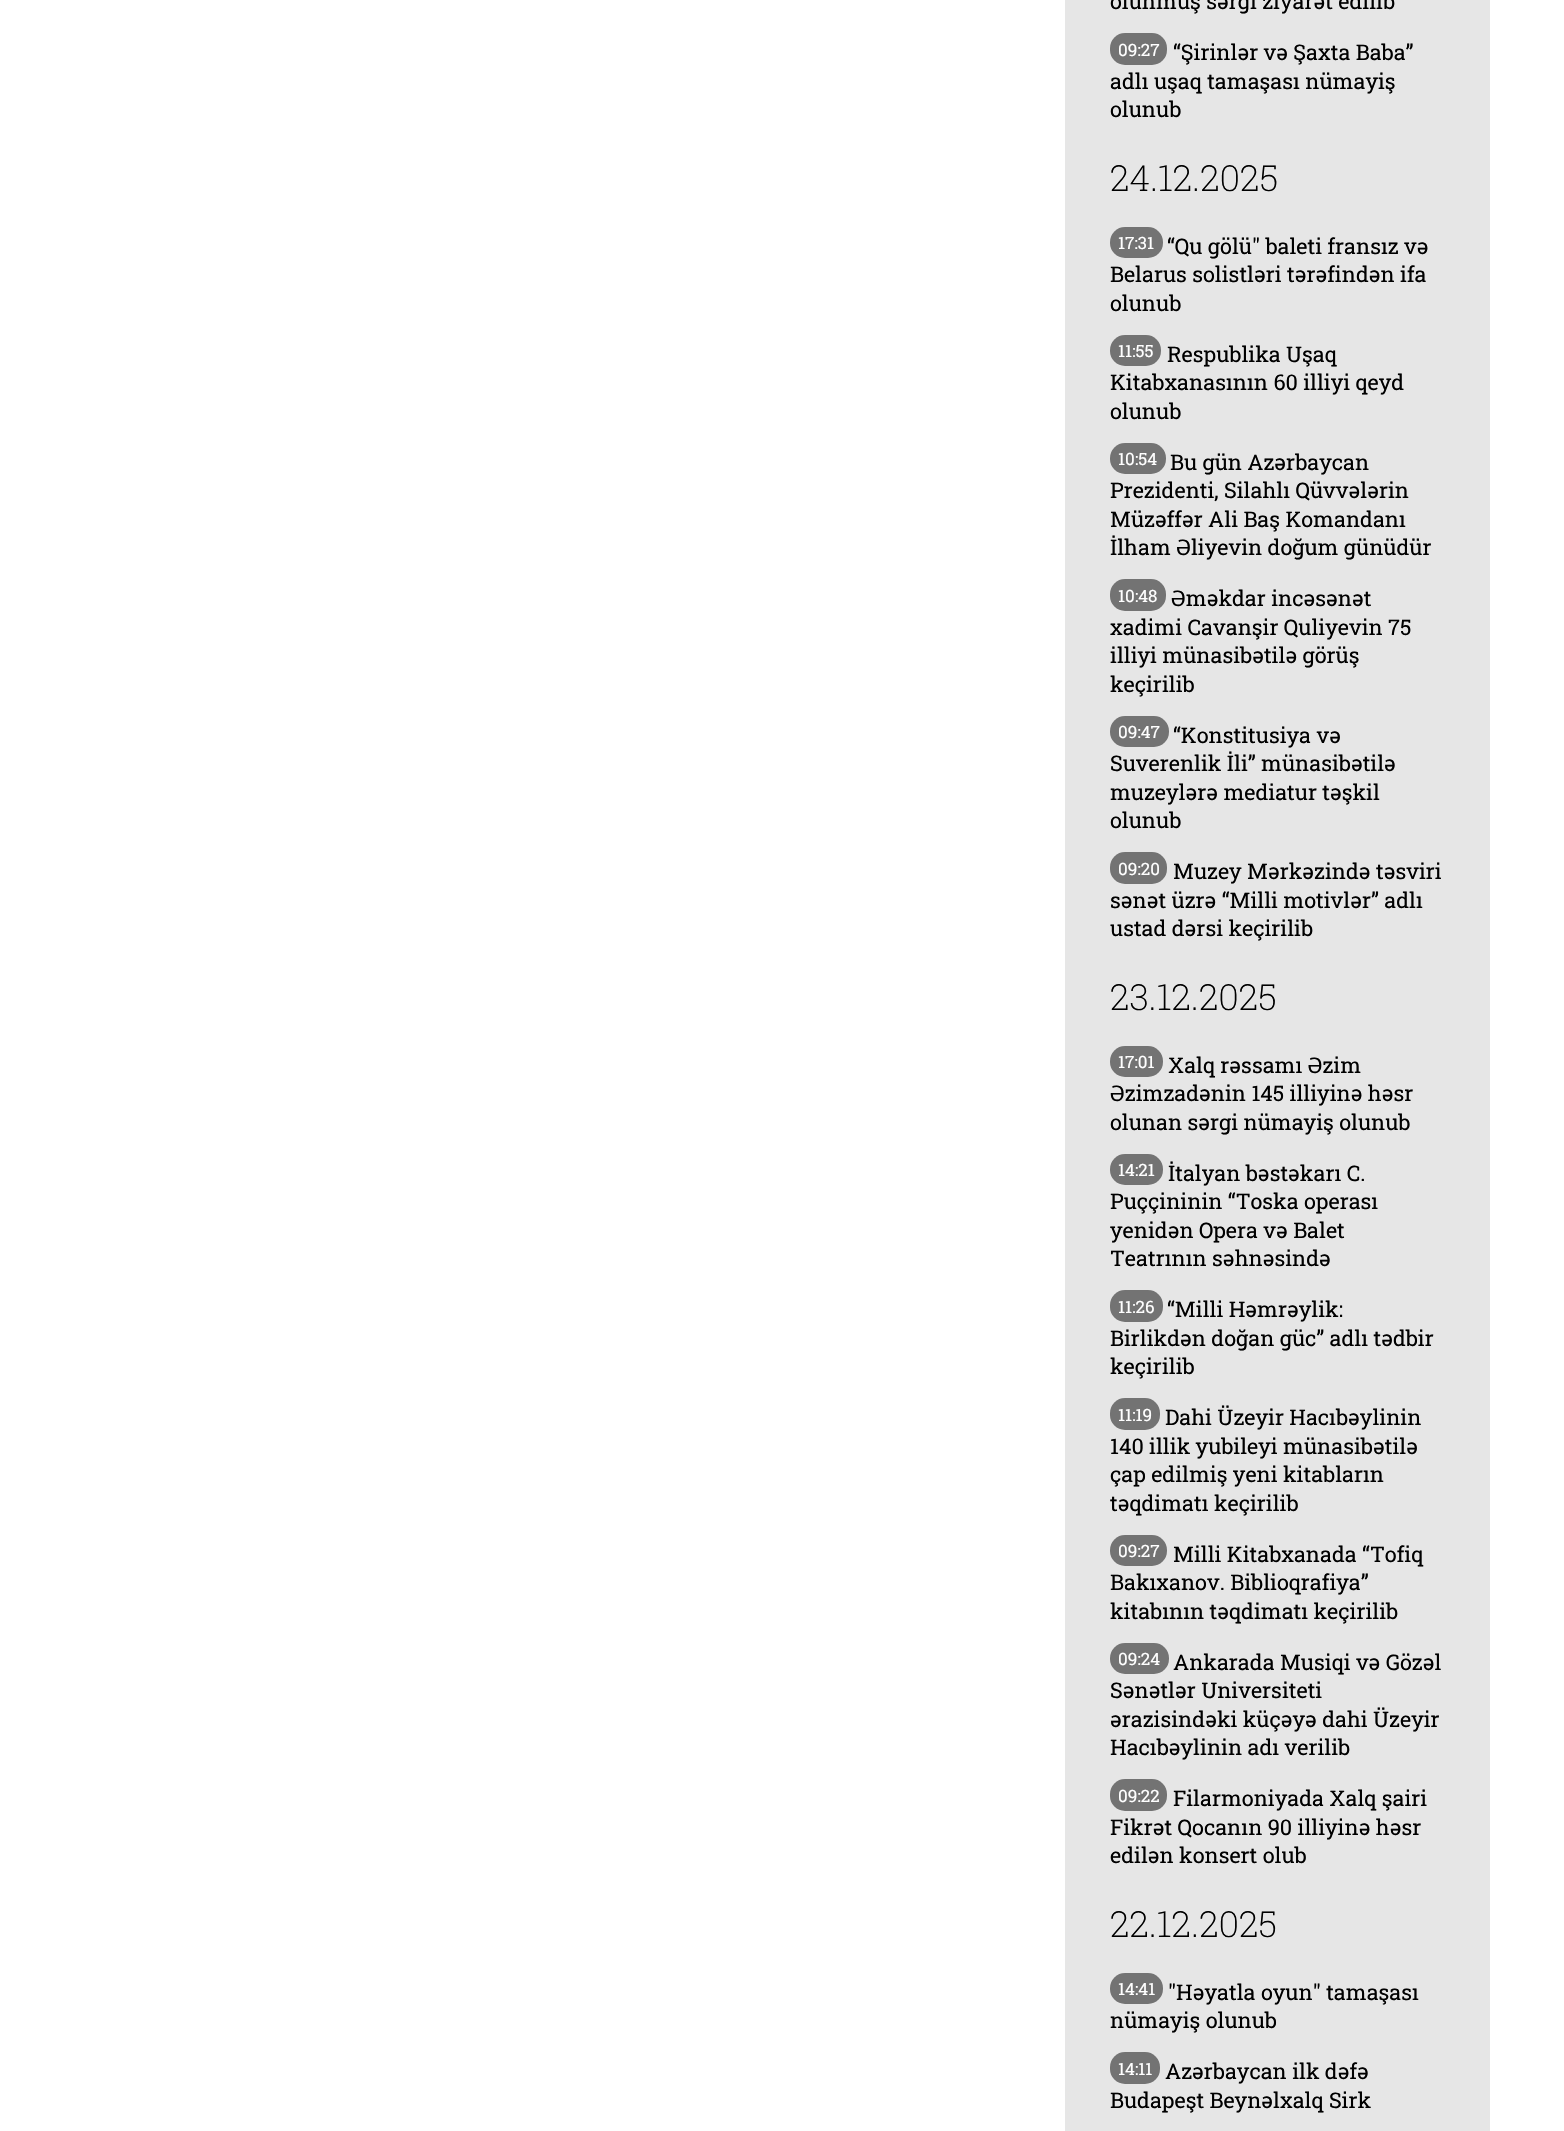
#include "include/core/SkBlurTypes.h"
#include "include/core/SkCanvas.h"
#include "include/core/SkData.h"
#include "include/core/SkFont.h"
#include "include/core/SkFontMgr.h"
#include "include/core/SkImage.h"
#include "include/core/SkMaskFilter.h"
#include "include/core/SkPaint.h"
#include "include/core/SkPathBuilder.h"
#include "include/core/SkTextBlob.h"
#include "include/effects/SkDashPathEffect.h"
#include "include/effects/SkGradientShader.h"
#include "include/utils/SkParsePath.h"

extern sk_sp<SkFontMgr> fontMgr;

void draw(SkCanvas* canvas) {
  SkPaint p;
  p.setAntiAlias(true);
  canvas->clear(SK_ColorWHITE);
  p.setColor(SkColorSetRGB(230, 230, 230));
  canvas->drawRect(SkRect::MakeLTRB(1065, 0, 1490, 2131), p);
  p.setColor(SkColorSetRGB(115, 115, 115));
  canvas->drawRoundRect(SkRect::MakeLTRB(1110, 33, 1167, 65), 15, 15, p);
  canvas->drawRoundRect(SkRect::MakeLTRB(1110, 227, 1163, 258), 15, 15, p);
  canvas->drawRoundRect(SkRect::MakeLTRB(1110, 335, 1161, 366), 15, 15, p);
  canvas->drawRoundRect(SkRect::MakeLTRB(1110, 443, 1166, 474), 15, 15, p);
  canvas->drawRoundRect(SkRect::MakeLTRB(1110, 579, 1166, 611), 15, 15, p);
  canvas->drawRoundRect(SkRect::MakeLTRB(1110, 716, 1169, 747), 15, 15, p);
  canvas->drawRoundRect(SkRect::MakeLTRB(1110, 852, 1167, 884), 15, 15, p);
  canvas->drawRoundRect(SkRect::MakeLTRB(1110, 1046, 1163, 1077), 15, 15, p);
  canvas->drawRoundRect(SkRect::MakeLTRB(1110, 1154, 1163, 1185), 15, 15, p);
  canvas->drawRoundRect(SkRect::MakeLTRB(1110, 1290, 1163, 1322), 15, 15, p);
  canvas->drawRoundRect(SkRect::MakeLTRB(1110, 1398, 1160, 1430), 15, 15, p);
  canvas->drawRoundRect(SkRect::MakeLTRB(1110, 1535, 1167, 1566), 15, 15, p);
  canvas->drawRoundRect(SkRect::MakeLTRB(1110, 1643, 1169, 1674), 15, 15, p);
  canvas->drawRoundRect(SkRect::MakeLTRB(1110, 1779, 1167, 1811), 15, 15, p);
  canvas->drawRoundRect(SkRect::MakeLTRB(1110, 1973, 1163, 2004), 15, 15, p);
  canvas->drawRoundRect(SkRect::MakeLTRB(1110, 2052, 1160, 2084), 15, 15, p);
  SkFont font1(fontMgr->matchFamilyStyle("Roboto Slab", SkFontStyle::Normal()), 21.6f);
  font1.setSubpixel(true);
  p.setColor(SK_ColorBLACK);
  canvas->drawString("olunmuş sərgi ziyarət edilib", 1110, 9, font1, p);
  SkFont font2(fontMgr->matchFamilyStyle("Roboto Slab", SkFontStyle::Normal()), 17);
  font2.setSubpixel(true);
  p.setColor(SK_ColorWHITE);
  canvas->drawString("09:27", 1118, 56, font2, p);
  p.setColor(SK_ColorBLACK);
  canvas->drawString("“Şirinlər və Şaxta Baba”", 1173, 60, font1, p);
  canvas->drawString("adlı uşaq tamaşası nümayiş", 1110, 89, font1, p);
  canvas->drawString("olunub", 1110, 117, font1, p);
  SkFont font3(fontMgr->matchFamilyStyle("Roboto Slab", SkFontStyle(200, SkFontStyle::kNormal_Width, SkFontStyle::kUpright_Slant)), 36);
  font3.setSubpixel(true);
  canvas->drawString("24.12.2025", 1110, 191, font3, p);
  p.setColor(SK_ColorWHITE);
  canvas->drawString("17:31", 1118, 249, font2, p);
  p.setColor(SK_ColorBLACK);
  canvas->drawString("“Qu gölü\" baleti fransız və", 1167, 254, font1, p);
  canvas->drawString("Belarus solistləri tərəfindən ifa", 1110, 282, font1, p);
  canvas->drawString("olunub", 1110, 311, font1, p);
  p.setColor(SK_ColorWHITE);
  canvas->drawString("11:55", 1118, 357, font2, p);
  p.setColor(SK_ColorBLACK);
  canvas->drawString("Respublika Uşaq", 1167, 362, font1, p);
  canvas->drawString("Kitabxanasının 60 illiyi qeyd", 1110, 390, font1, p);
  canvas->drawString("olunub", 1110, 419, font1, p);
  p.setColor(SK_ColorWHITE);
  canvas->drawString("10:54", 1118, 465, font2, p);
  p.setColor(SK_ColorBLACK);
  canvas->drawString("Bu gün Azərbaycan", 1170, 470, font1, p);
  canvas->drawString("Prezidenti, Silahlı Qüvvələrin", 1110, 498, font1, p);
  canvas->drawString("Müzəffər Ali Baş Komandanı", 1110, 527, font1, p);
  canvas->drawString("İlham Əliyevin doğum günüdür", 1110, 555, font1, p);
  p.setColor(SK_ColorWHITE);
  canvas->drawString("10:48", 1118, 602, font2, p);
  p.setColor(SK_ColorBLACK);
  canvas->drawString("Əməkdar incəsənət", 1171, 606, font1, p);
  canvas->drawString("xadimi Cavanşir Quliyevin 75", 1110, 635, font1, p);
  canvas->drawString("illiyi münasibətilə görüş", 1110, 663, font1, p);
  canvas->drawString("keçirilib", 1110, 692, font1, p);
  p.setColor(SK_ColorWHITE);
  canvas->drawString("09:47", 1118, 738, font2, p);
  p.setColor(SK_ColorBLACK);
  canvas->drawString("“Konstitusiya və", 1173, 743, font1, p);
  canvas->drawString("Suverenlik İli” münasibətilə", 1110, 771, font1, p);
  canvas->drawString("muzeylərə mediatur təşkil", 1110, 800, font1, p);
  canvas->drawString("olunub", 1110, 828, font1, p);
  p.setColor(SK_ColorWHITE);
  canvas->drawString("09:20", 1118, 875, font2, p);
  p.setColor(SK_ColorBLACK);
  canvas->drawString("Muzey Mərkəzində təsviri", 1173, 879, font1, p);
  canvas->drawString("sənət üzrə “Milli motivlər” adlı", 1110, 908, font1, p);
  canvas->drawString("ustad dərsi keçirilib", 1110, 936, font1, p);
  canvas->drawString("23.12.2025", 1110, 1010, font3, p);
  p.setColor(SK_ColorWHITE);
  canvas->drawString("17:01", 1118, 1068, font2, p);
  p.setColor(SK_ColorBLACK);
  canvas->drawString("Xalq rəssamı Əzim", 1168, 1073, font1, p);
  canvas->drawString("Əzimzadənin 145 illiyinə həsr", 1110, 1101, font1, p);
  canvas->drawString("olunan sərgi nümayiş olunub", 1110, 1130, font1, p);
  p.setColor(SK_ColorWHITE);
  canvas->drawString("14:21", 1118, 1176, font2, p);
  p.setColor(SK_ColorBLACK);
  canvas->drawString("İtalyan bəstəkarı C.", 1168, 1181, font1, p);
  canvas->drawString("Puççininin “Toska operası", 1110, 1209, font1, p);
  canvas->drawString("yenidən Opera və Balet", 1110, 1238, font1, p);
  canvas->drawString("Teatrının səhnəsində", 1110, 1266, font1, p);
  p.setColor(SK_ColorWHITE);
  canvas->drawString("11:26", 1118, 1313, font2, p);
  p.setColor(SK_ColorBLACK);
  canvas->drawString("“Milli Həmrəylik:", 1167, 1317, font1, p);
  canvas->drawString("Birlikdən doğan güc” adlı tədbir", 1110, 1346, font1, p);
  canvas->drawString("keçirilib", 1110, 1374, font1, p);
  p.setColor(SK_ColorWHITE);
  canvas->drawString("11:19", 1118, 1421, font2, p);
  p.setColor(SK_ColorBLACK);
  canvas->drawString("Dahi Üzeyir Hacıbəylinin", 1165, 1425, font1, p);
  canvas->drawString("140 illik yubileyi münasibətilə", 1110, 1454, font1, p);
  canvas->drawString("çap edilmiş yeni kitabların", 1110, 1482, font1, p);
  canvas->drawString("təqdimatı keçirilib", 1110, 1511, font1, p);
  p.setColor(SK_ColorWHITE);
  canvas->drawString("09:27", 1118, 1557, font2, p);
  p.setColor(SK_ColorBLACK);
  canvas->drawString("Milli Kitabxanada “Tofiq", 1173, 1562, font1, p);
  canvas->drawString("Bakıxanov. Biblioqrafiya”", 1110, 1590, font1, p);
  canvas->drawString("kitabının təqdimatı keçirilib", 1110, 1619, font1, p);
  p.setColor(SK_ColorWHITE);
  canvas->drawString("09:24", 1118, 1665, font2, p);
  p.setColor(SK_ColorBLACK);
  canvas->drawString("Ankarada Musiqi və Gözəl", 1173, 1670, font1, p);
  canvas->drawString("Sənətlər Universiteti", 1110, 1698, font1, p);
  canvas->drawString("ərazisindəki küçəyə dahi Üzeyir", 1110, 1727, font1, p);
  canvas->drawString("Hacıbəylinin adı verilib", 1110, 1755, font1, p);
  p.setColor(SK_ColorWHITE);
  canvas->drawString("09:22", 1118, 1802, font2, p);
  p.setColor(SK_ColorBLACK);
  canvas->drawString("Filarmoniyada Xalq şairi", 1173, 1806, font1, p);
  canvas->drawString("Fikrət Qocanın 90 illiyinə həsr", 1110, 1835, font1, p);
  canvas->drawString("edilən konsert olub", 1110, 1863, font1, p);
  canvas->drawString("22.12.2025", 1110, 1937, font3, p);
  p.setColor(SK_ColorWHITE);
  canvas->drawString("14:41", 1118, 1995, font2, p);
  p.setColor(SK_ColorBLACK);
  canvas->drawString("\"Həyatla oyun\" tamaşası", 1168, 2000, font1, p);
  canvas->drawString("nümayiş olunub", 1110, 2028, font1, p);
  p.setColor(SK_ColorWHITE);
  canvas->drawString("14:11", 1118, 2075, font2, p);
  p.setColor(SK_ColorBLACK);
  canvas->drawString("Azərbaycan ilk dəfə", 1165, 2079, font1, p);
  canvas->drawString("Budapeşt Beynəlxalq Sirk", 1110, 2108, font1, p);
}
